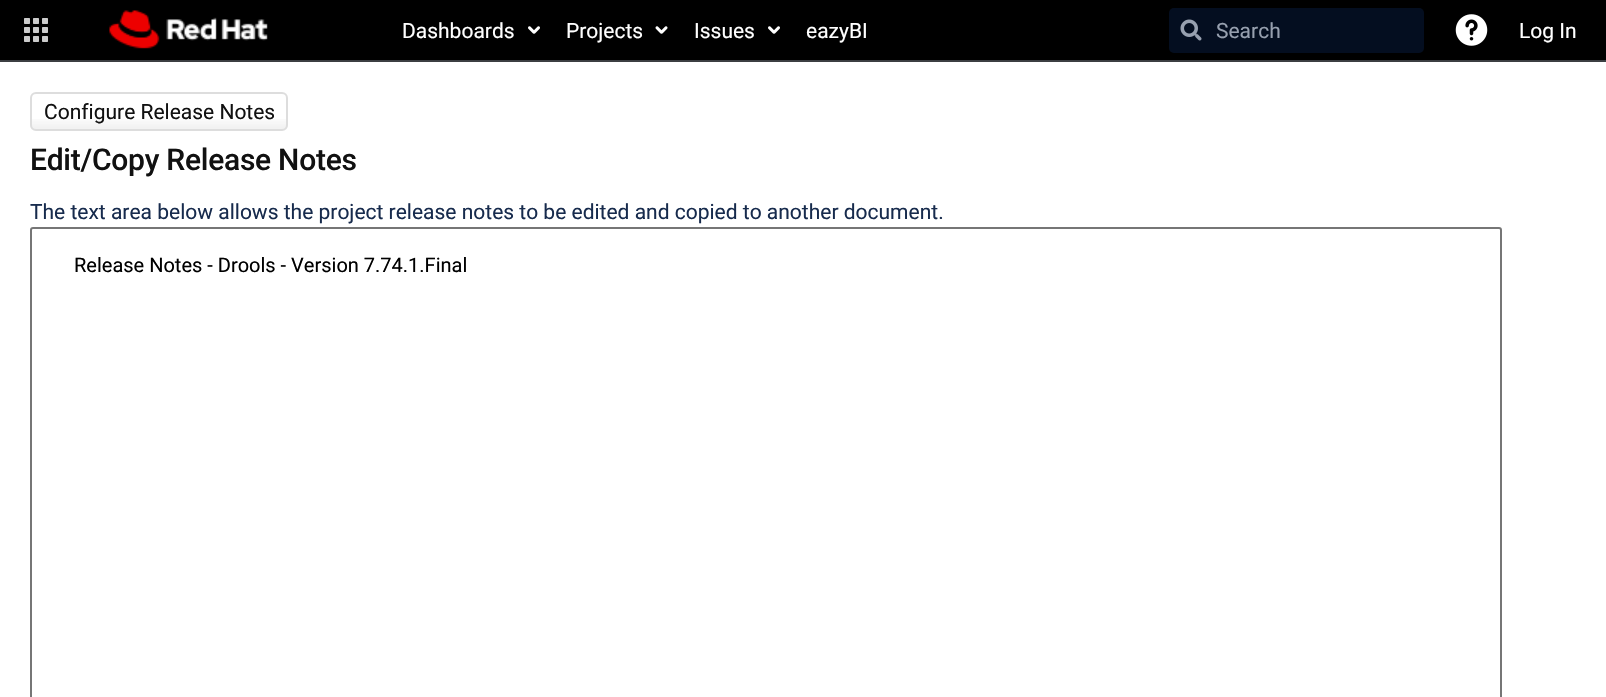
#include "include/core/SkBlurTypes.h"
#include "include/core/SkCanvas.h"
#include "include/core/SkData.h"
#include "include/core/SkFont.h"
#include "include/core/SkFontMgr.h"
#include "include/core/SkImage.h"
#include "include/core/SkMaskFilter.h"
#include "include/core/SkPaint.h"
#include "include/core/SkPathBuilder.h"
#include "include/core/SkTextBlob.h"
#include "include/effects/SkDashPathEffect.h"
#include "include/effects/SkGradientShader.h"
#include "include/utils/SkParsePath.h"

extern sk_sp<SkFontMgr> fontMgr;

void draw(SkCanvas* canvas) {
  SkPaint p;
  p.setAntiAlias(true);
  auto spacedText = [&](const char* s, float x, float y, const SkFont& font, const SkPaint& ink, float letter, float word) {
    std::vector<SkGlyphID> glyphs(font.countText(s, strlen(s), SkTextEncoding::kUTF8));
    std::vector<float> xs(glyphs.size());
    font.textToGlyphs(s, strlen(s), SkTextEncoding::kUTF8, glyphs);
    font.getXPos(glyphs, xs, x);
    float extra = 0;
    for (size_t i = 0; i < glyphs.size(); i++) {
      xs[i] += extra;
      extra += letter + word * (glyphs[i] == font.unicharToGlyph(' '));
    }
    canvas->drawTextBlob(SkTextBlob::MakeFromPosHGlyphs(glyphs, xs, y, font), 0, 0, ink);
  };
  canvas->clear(SK_ColorWHITE);
  p.setColor(SK_ColorBLACK);
  canvas->drawRect(SkRect::MakeLTRB(0, 0, 1606, 60), p);
  p.setColor(SkColorSetRGB(60, 63, 66));
  canvas->drawRect(SkRect::MakeLTRB(0, 60, 1606, 62), p);
  canvas->drawImageRect(SkImages::DeferredFromEncodedData(SkData::MakeFromFileName("images/1.png")), SkRect::MakeLTRB(24, 18, 48, 42), SkSamplingOptions());
  canvas->drawImageRect(SkImages::DeferredFromEncodedData(SkData::MakeFromFileName("images/2.png")), SkRect::MakeLTRB(109, 10, 268, 49), SkSamplingOptions());
  canvas->drawImageRect(SkImages::DeferredFromEncodedData(SkData::MakeFromFileName("images/3.png")), SkRect::MakeLTRB(528, 26, 540, 34), SkSamplingOptions());
  canvas->drawImageRect(SkImages::DeferredFromEncodedData(SkData::MakeFromFileName("images/4.png")), SkRect::MakeLTRB(655, 26, 668, 34), SkSamplingOptions());
  canvas->drawImageRect(SkImages::DeferredFromEncodedData(SkData::MakeFromFileName("images/3.png")), SkRect::MakeLTRB(768, 26, 780, 34), SkSamplingOptions());
  p.setColor(SkColorSetRGB(4, 14, 32));
  canvas->drawRoundRect(SkRect::MakeLTRB(1169, 8, 1424, 53), 5, 5, p);
  canvas->drawImageRect(SkImages::DeferredFromEncodedData(SkData::MakeFromFileName("images/5.png")), SkRect::MakeLTRB(1180, 19, 1202, 41), SkSamplingOptions());
  canvas->drawImageRect(SkImages::DeferredFromEncodedData(SkData::MakeFromFileName("images/6.png")), SkRect::MakeLTRB(1455, 14, 1488, 46), SkSamplingOptions());
  canvas->drawImageRect(SkImages::DeferredFromEncodedData(SkData::MakeFromFileName("images/7.png")), SkRect::MakeLTRB(30, 119, 288, 129), SkSamplingOptions());
  p.setStyle(SkPaint::kStroke_Style);
  p.setStrokeWidth(2);
  p.setColor(SkColorSetRGB(221, 221, 221));
  canvas->drawRoundRect(SkRect::MakeLTRB(31, 93, 287, 130), 5, 5, p);
  p.setColor(SkColorSetRGB(118, 118, 118));
  canvas->drawRoundRect(SkRect::MakeLTRB(31, 228, 1501, 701), 2, 2, p);
  SkFont font1(fontMgr->matchFamilyStyle("Roboto", SkFontStyle::Normal()), 21);
  font1.setSubpixel(true);
  p.setStyle(SkPaint::kFill_Style);
  p.setColor(SK_ColorWHITE);
  canvas->drawString("Dashboards", 402, 38, font1, p);
  canvas->drawString("Projects", 566, 38, font1, p);
  canvas->drawString("Issues", 694, 38, font1, p);
  canvas->drawString("eazyBI", 806, 38, font1, p);
  p.setColor(SkColorSetRGB(151, 160, 175));
  canvas->drawString("Search", 1216, 38, font1, p);
  p.setColor(SK_ColorWHITE);
  canvas->drawString("Log In", 1519, 38, font1, p);
  p.setColor(SkColorSetRGB(17, 17, 17));
  canvas->drawString("Configure Release Notes", 44, 119, font1, p);
  SkFont font2(fontMgr->matchFamilyStyle("Roboto", SkFontStyle(500, SkFontStyle::kNormal_Width, SkFontStyle::kUpright_Slant)), 30);
  font2.setSubpixel(true);
  spacedText("Edit/Copy Release Notes", 30, 170, font2, p, -0.25f, 0);
  p.setColor(SkColorSetRGB(23, 43, 77));
  canvas->drawString("The text area below allows the project release notes to be edited and copied to another document.", 30, 219, font1, p);
  SkFont font3(fontMgr->matchFamilyStyle("Roboto", SkFontStyle::Normal()), 20);
  font3.setSubpixel(true);
  p.setColor(SK_ColorBLACK);
  canvas->drawString("Release Notes - Drools - Version 7.74.1.Final", 74, 272, font3, p);
}
